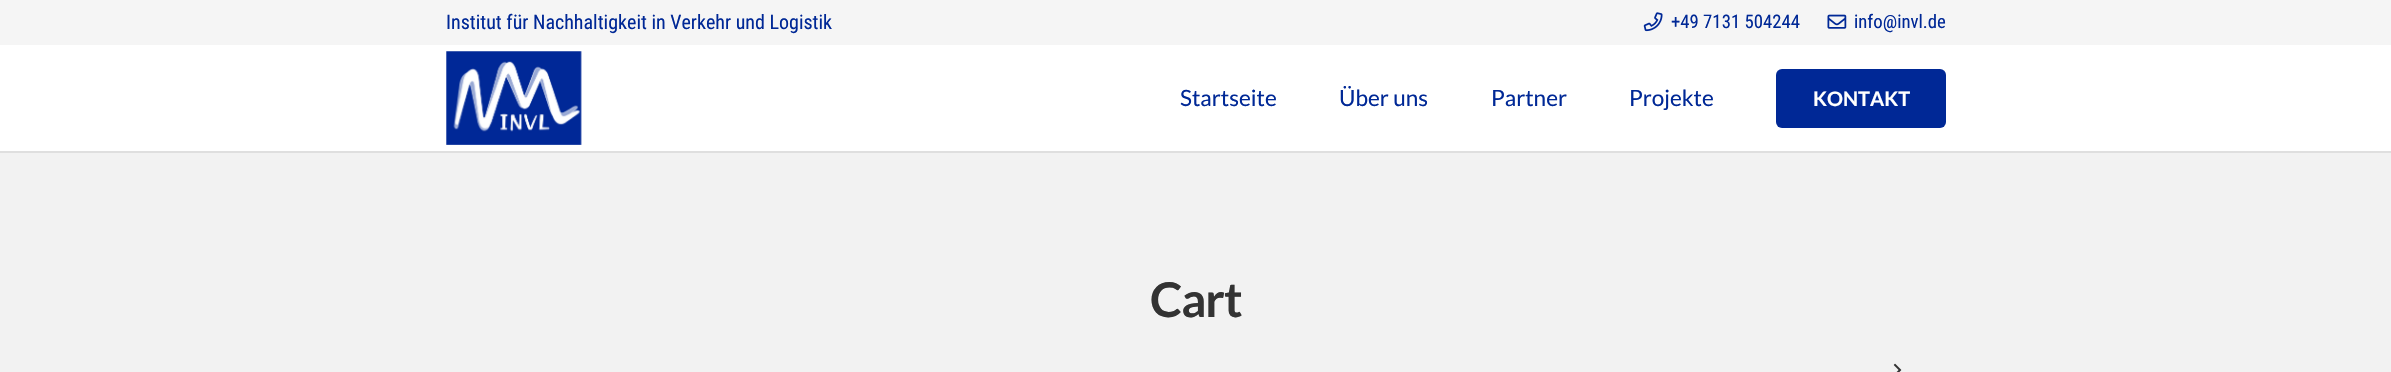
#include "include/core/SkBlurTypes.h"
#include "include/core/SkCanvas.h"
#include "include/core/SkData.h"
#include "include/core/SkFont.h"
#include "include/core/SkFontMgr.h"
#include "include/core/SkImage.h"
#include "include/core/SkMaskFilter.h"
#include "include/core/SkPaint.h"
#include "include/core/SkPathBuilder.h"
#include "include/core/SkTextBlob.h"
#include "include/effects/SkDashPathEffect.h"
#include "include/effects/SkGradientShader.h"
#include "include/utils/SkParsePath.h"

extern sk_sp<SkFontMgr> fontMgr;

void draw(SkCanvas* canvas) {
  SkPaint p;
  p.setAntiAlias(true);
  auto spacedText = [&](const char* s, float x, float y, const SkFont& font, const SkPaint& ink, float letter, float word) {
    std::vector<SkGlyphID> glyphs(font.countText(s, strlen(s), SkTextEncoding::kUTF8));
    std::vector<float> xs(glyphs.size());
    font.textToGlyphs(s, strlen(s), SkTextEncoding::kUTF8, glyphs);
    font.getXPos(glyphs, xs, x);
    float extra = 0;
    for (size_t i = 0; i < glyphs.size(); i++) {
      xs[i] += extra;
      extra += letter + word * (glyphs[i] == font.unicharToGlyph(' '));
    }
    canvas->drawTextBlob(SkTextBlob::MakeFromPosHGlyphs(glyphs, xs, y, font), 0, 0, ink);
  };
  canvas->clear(SkColorSetRGB(242, 242, 242));
  p.setColor(SkColorSetRGB(245, 245, 245));
  canvas->drawRect(SkRect::MakeLTRB(0, 0, 2391, 45), p);
  canvas->drawImageRect(SkImages::DeferredFromEncodedData(SkData::MakeFromFileName("images/1.png")), SkRect::MakeLTRB(1643, 12, 1663, 32), SkSamplingOptions());
  canvas->drawImageRect(SkImages::DeferredFromEncodedData(SkData::MakeFromFileName("images/2.png")), SkRect::MakeLTRB(1827, 14, 1847, 29), SkSamplingOptions());
  p.setColor(SkColorSetRGB(223, 223, 223));
  canvas->drawRect(SkRect::MakeLTRB(0, 151, 2391, 153), p);
  p.setColor(SK_ColorWHITE);
  canvas->drawRect(SkRect::MakeLTRB(0, 45, 2391, 151), p);
  canvas->drawImageRect(SkImages::DeferredFromEncodedData(SkData::MakeFromFileName("images/3.png")), SkRect::MakeLTRB(446, 51, 582, 145), SkSamplingOptions());
  p.setColor(SkColorSetRGB(0, 40, 150));
  canvas->drawRoundRect(SkRect::MakeLTRB(1776, 69, 1946, 128), 6, 6, p);
  canvas->drawImageRect(SkImages::DeferredFromEncodedData(SkData::MakeFromFileName("images/4.png")), SkRect::MakeLTRB(1893, 363, 1902, 372), SkSamplingOptions());
  SkFont font1(fontMgr->matchFamilyStyle("Roboto Condensed", SkFontStyle::Normal()), 20);
  font1.setSubpixel(true);
  canvas->drawString("Institut für Nachhaltigkeit in Verkehr und Logistik", 446, 29, font1, p);
  SkFont font2(fontMgr->matchFamilyStyle("Roboto Condensed", SkFontStyle::Normal()), 18.75f);
  font2.setSubpixel(true);
  canvas->drawString("+49 7131 504244", 1671, 28, font2, p);
  canvas->drawString("info@invl.de", 1854, 28, font2, p);
  SkFont font3(fontMgr->matchFamilyStyle("Lato", SkFontStyle::Normal()), 22.5f);
  font3.setSubpixel(true);
  canvas->drawString("Startseite", 1180, 106, font3, p);
  canvas->drawString("Über uns", 1339, 106, font3, p);
  canvas->drawString("Partner", 1491, 106, font3, p);
  canvas->drawString("Projekte", 1629, 106, font3, p);
  SkFont font4(fontMgr->matchFamilyStyle("Lato", SkFontStyle::Bold()), 20);
  font4.setSubpixel(true);
  p.setColor(SK_ColorWHITE);
  canvas->drawString("KONTAKT", 1813, 106, font4, p);
  SkFont font5(fontMgr->matchFamilyStyle("Lato", SkFontStyle::Bold()), 48);
  font5.setSubpixel(true);
  p.setColor(SkColorSetRGB(51, 51, 51));
  spacedText("Cart", 1150, 317, font5, p, -1, 0);
}
